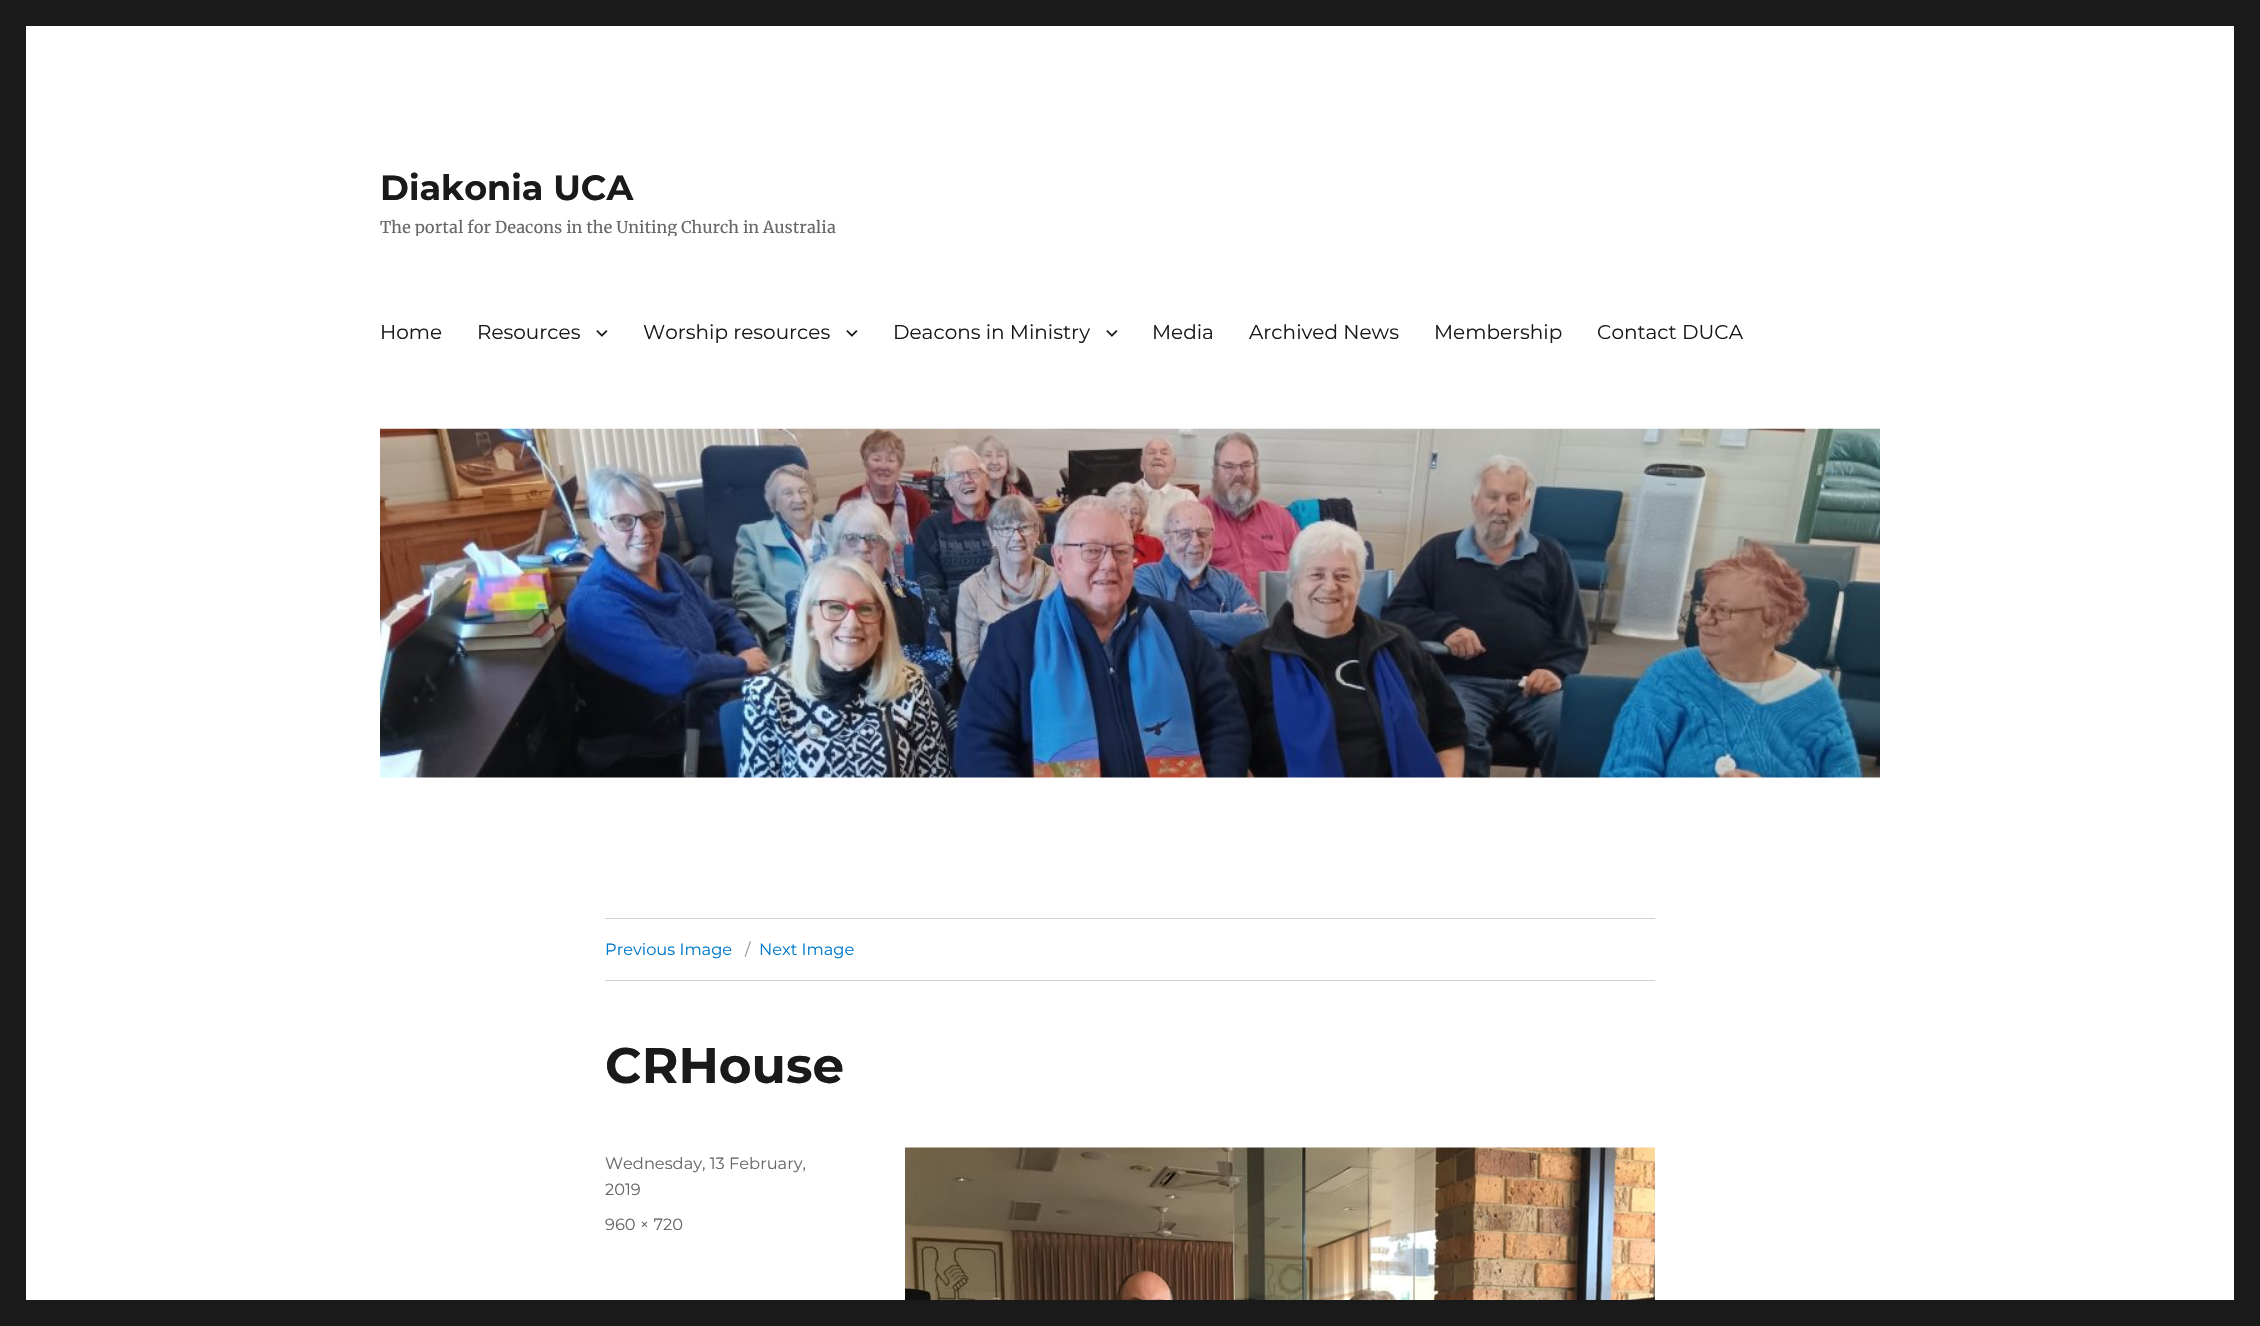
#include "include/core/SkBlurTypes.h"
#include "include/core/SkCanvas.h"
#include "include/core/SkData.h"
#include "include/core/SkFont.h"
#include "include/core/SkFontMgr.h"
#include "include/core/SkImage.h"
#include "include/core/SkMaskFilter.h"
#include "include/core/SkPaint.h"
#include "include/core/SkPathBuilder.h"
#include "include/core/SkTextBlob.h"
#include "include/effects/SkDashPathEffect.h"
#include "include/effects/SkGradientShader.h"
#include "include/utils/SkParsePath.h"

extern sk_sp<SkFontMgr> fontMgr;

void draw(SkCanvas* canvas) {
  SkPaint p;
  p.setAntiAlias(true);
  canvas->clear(SkColorSetRGB(26, 26, 26));
  p.setColor(SK_ColorWHITE);
  canvas->drawRect(SkRect::MakeLTRB(26, 26, 2234, 1300), p);
  canvas->drawImageRect(SkImages::DeferredFromEncodedData(SkData::MakeFromFileName("images/1.png")), SkRect::MakeLTRB(596, 330, 608, 337), SkSamplingOptions());
  canvas->drawImageRect(SkImages::DeferredFromEncodedData(SkData::MakeFromFileName("images/1.png")), SkRect::MakeLTRB(846, 330, 858, 337), SkSamplingOptions());
  canvas->drawImageRect(SkImages::DeferredFromEncodedData(SkData::MakeFromFileName("images/1.png")), SkRect::MakeLTRB(1106, 330, 1118, 337), SkSamplingOptions());
  canvas->drawImageRect(SkImages::DeferredFromEncodedData(SkData::MakeFromFileName("images/2.png")), SkRect::MakeLTRB(380, 428, 1880, 778), SkSamplingOptions());
  p.setColor(SkColorSetRGB(209, 209, 209));
  canvas->drawRect(SkRect::MakeLTRB(605, 918, 1655, 919), p);
  canvas->drawRect(SkRect::MakeLTRB(605, 980, 1655, 981), p);
  canvas->drawImageRect(SkImages::DeferredFromEncodedData(SkData::MakeFromFileName("images/3.png")), SkRect::MakeLTRB(905, 1147, 1655, 1300), SkSamplingOptions());
  SkFont font1(fontMgr->matchFamilyStyle("Montserrat", SkFontStyle(100, SkFontStyle::kNormal_Width, SkFontStyle::kUpright_Slant)), 35);
  font1.setSubpixel(true);
  p.setColor(SkColorSetRGB(26, 26, 26));
  canvas->drawString("Diakonia UCA", 380, 200, font1, p);
  canvas->save();
  canvas->clipRect(SkRect::MakeLTRB(380, 166, 836, 236));
  SkFont font2(fontMgr->matchFamilyStyle("Merriweather", SkFontStyle::Normal()), 16.25f);
  font2.setSubpixel(true);
  p.setColor(SkColorSetRGB(104, 104, 104));
  canvas->drawString("The portal for Deacons in the Uniting Church in Australia", 380, 233, font2, p);
  canvas->restore();
  SkFont font3(fontMgr->matchFamilyStyle("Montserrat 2", SkFontStyle(100, SkFontStyle::kNormal_Width, SkFontStyle::kUpright_Slant)), 20);
  font3.setSubpixel(true);
  p.setColor(SkColorSetRGB(26, 26, 26));
  canvas->drawString("Home", 380, 339, font3, p);
  canvas->drawString("Resources", 477, 339, font3, p);
  canvas->drawString("Worship resources", 643, 339, font3, p);
  canvas->drawString("Deacons in Ministry", 893, 339, font3, p);
  canvas->drawString("Media", 1152, 339, font3, p);
  canvas->drawString("Archived News", 1249, 339, font3, p);
  canvas->drawString("Membership", 1434, 339, font3, p);
  canvas->drawString("Contact DUCA", 1597, 339, font3, p);
  SkFont font4(fontMgr->matchFamilyStyle("Montserrat 2", SkFontStyle(100, SkFontStyle::kNormal_Width, SkFontStyle::kUpright_Slant)), 16.25f);
  font4.setSubpixel(true);
  p.setColor(SkColorSetRGB(0, 122, 204));
  canvas->drawString("Previous Image", 605, 955, font4, p);
  p.setColor(SkColorSetRGB(149, 149, 149));
  canvas->drawString("/", 745, 955, font4, p);
  p.setColor(SkColorSetRGB(0, 122, 204));
  canvas->drawString("Next Image", 759, 955, font4, p);
  SkFont font5(fontMgr->matchFamilyStyle("Montserrat", SkFontStyle(100, SkFontStyle::kNormal_Width, SkFontStyle::kUpright_Slant)), 50);
  font5.setSubpixel(true);
  p.setColor(SkColorSetRGB(26, 26, 26));
  canvas->drawString("CRHouse", 605, 1083, font5, p);
  p.setColor(SkColorSetRGB(104, 104, 104));
  canvas->drawString("Wednesday, 13 February,", 605, 1169, font4, p);
  canvas->drawString("2019", 605, 1195, font4, p);
  canvas->drawString("960 × 720", 605, 1230, font4, p);
}
